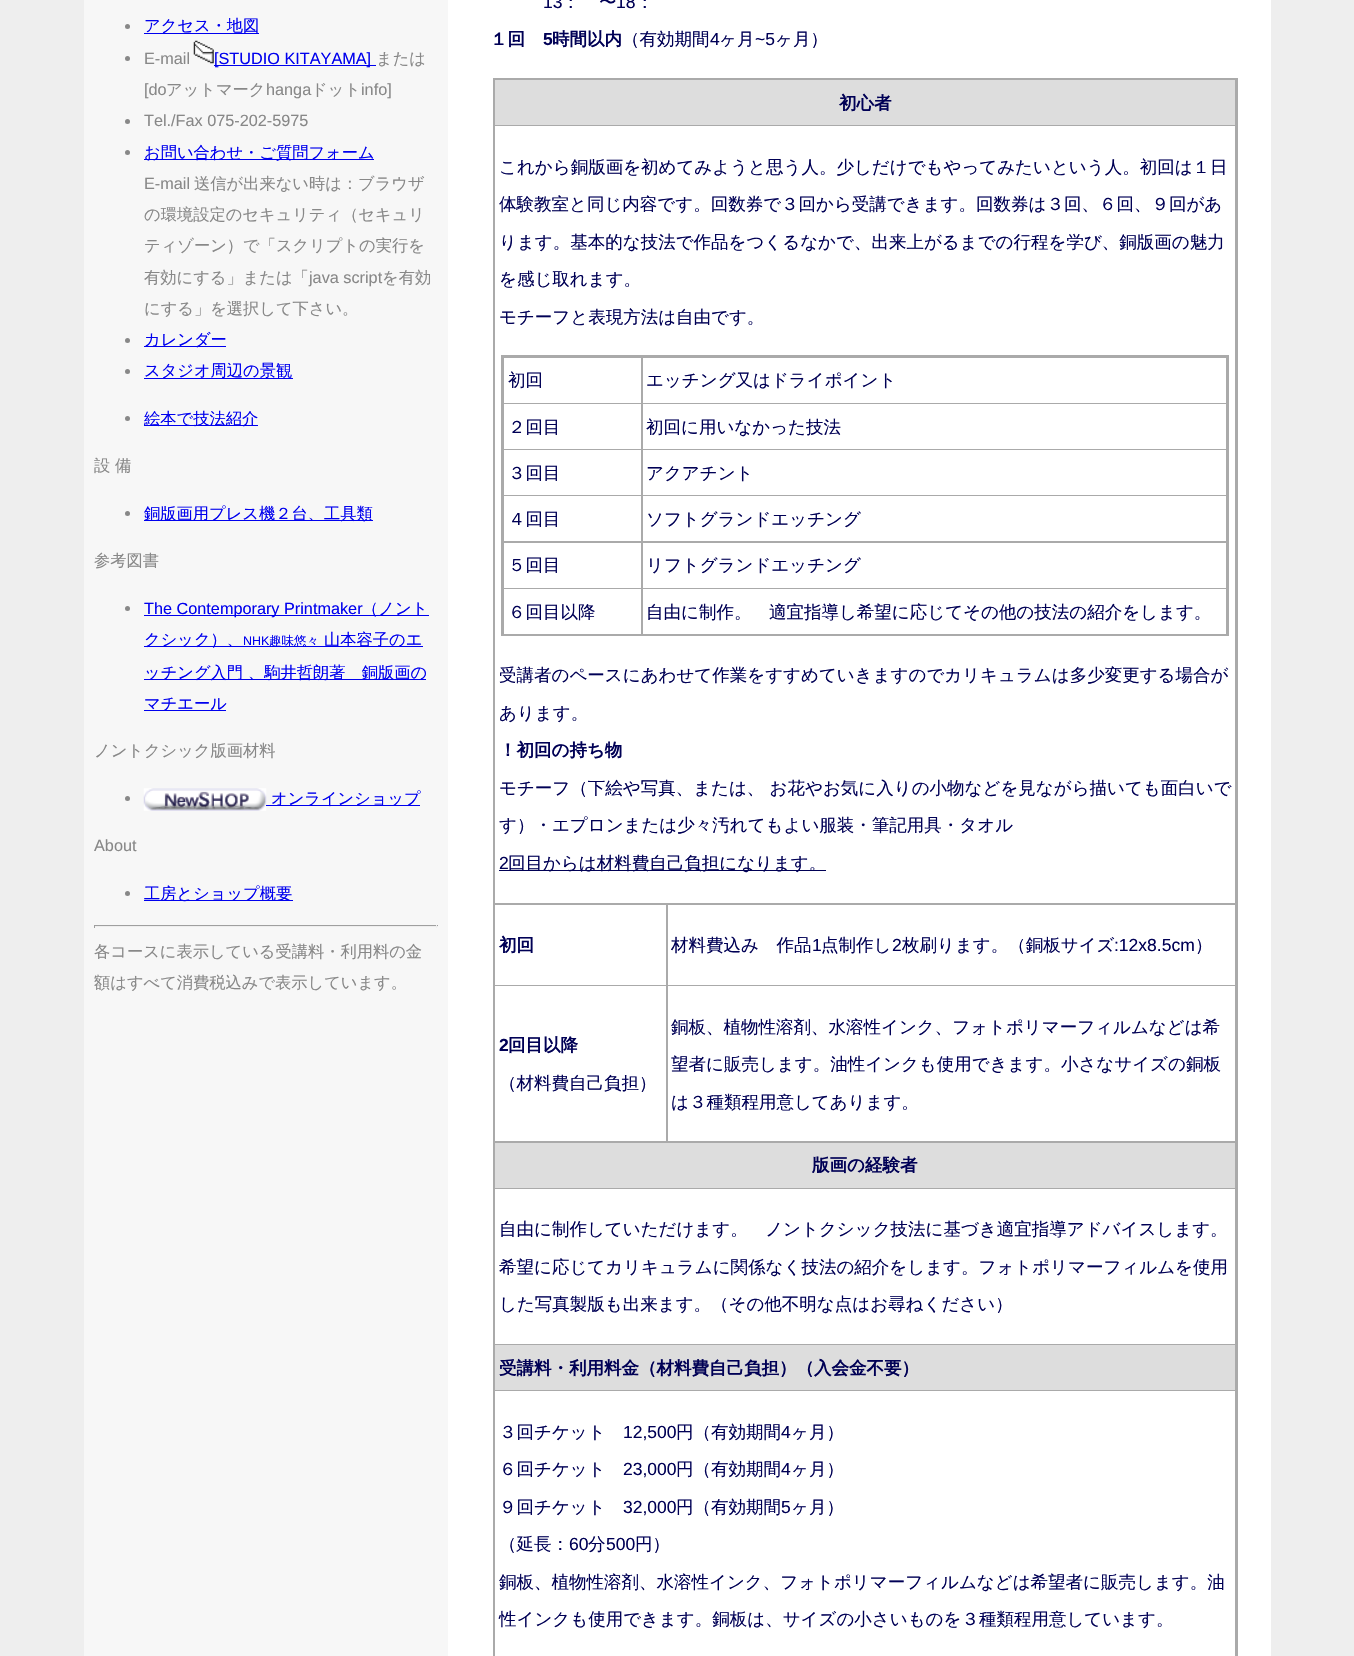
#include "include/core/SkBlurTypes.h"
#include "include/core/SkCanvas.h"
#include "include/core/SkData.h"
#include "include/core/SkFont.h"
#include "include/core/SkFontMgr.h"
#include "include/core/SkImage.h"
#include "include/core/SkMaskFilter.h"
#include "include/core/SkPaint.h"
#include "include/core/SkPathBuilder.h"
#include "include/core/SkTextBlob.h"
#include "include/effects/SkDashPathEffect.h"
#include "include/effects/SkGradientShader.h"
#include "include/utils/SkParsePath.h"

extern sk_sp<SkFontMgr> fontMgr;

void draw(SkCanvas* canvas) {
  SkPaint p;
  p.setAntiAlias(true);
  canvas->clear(SkColorSetRGB(238, 238, 238));
  p.setColor(SK_ColorWHITE);
  canvas->drawRect(SkRect::MakeLTRB(448, 0, 1271, 1656), p);
  p.setColor(SkColorSetRGB(247, 247, 247));
  canvas->drawRect(SkRect::MakeLTRB(84, 0, 448, 1656), p);
  p.setColor(SkColorSetRGB(136, 136, 136));
  canvas->drawCircle(127.5f, 26.5f, 2.5f, p);
  p.setColor(SkColorSetRGB(0, 0, 238));
  canvas->drawRect(SkRect::MakeLTRB(144, 33, 259, 34), p);
  p.setColor(SkColorSetRGB(136, 136, 136));
  canvas->drawCircle(127.5f, 58.5f, 2.5f, p);
  canvas->drawImageRect(SkImages::DeferredFromEncodedData(SkData::MakeFromFileName("images/1.png")), SkRect::MakeLTRB(193, 40, 214, 64), SkSamplingOptions());
  p.setColor(SkColorSetRGB(0, 0, 238));
  canvas->drawRect(SkRect::MakeLTRB(214, 65, 376, 66), p);
  p.setColor(SkColorSetRGB(136, 136, 136));
  canvas->drawCircle(127.5f, 121.5f, 2.5f, p);
  canvas->drawCircle(127.5f, 152.5f, 2.5f, p);
  p.setColor(SkColorSetRGB(0, 0, 238));
  canvas->drawRect(SkRect::MakeLTRB(144, 159, 374, 160), p);
  p.setColor(SkColorSetRGB(136, 136, 136));
  canvas->drawCircle(127.5f, 340.5f, 2.5f, p);
  p.setColor(SkColorSetRGB(0, 0, 238));
  canvas->drawRect(SkRect::MakeLTRB(144, 346, 226, 347), p);
  p.setColor(SkColorSetRGB(136, 136, 136));
  canvas->drawCircle(127.5f, 371.5f, 2.5f, p);
  p.setColor(SkColorSetRGB(0, 0, 238));
  canvas->drawRect(SkRect::MakeLTRB(144, 378, 293, 379), p);
  p.setColor(SkColorSetRGB(136, 136, 136));
  canvas->drawCircle(127.5f, 418.5f, 2.5f, p);
  p.setColor(SkColorSetRGB(0, 0, 238));
  canvas->drawRect(SkRect::MakeLTRB(144, 425, 258, 426), p);
  p.setColor(SkColorSetRGB(136, 136, 136));
  canvas->drawCircle(127.5f, 513.5f, 2.5f, p);
  p.setColor(SkColorSetRGB(0, 0, 238));
  canvas->drawRect(SkRect::MakeLTRB(144, 520, 373, 521), p);
  p.setColor(SkColorSetRGB(136, 136, 136));
  canvas->drawCircle(127.5f, 608.5f, 2.5f, p);
  p.setColor(SkColorSetRGB(0, 0, 238));
  canvas->drawRect(SkRect::MakeLTRB(144, 615, 429, 616), p);
  canvas->drawRect(SkRect::MakeLTRB(144, 646, 423, 647), p);
  canvas->drawRect(SkRect::MakeLTRB(144, 679, 426, 680), p);
  canvas->drawRect(SkRect::MakeLTRB(144, 710, 226, 711), p);
  p.setColor(SkColorSetRGB(136, 136, 136));
  canvas->drawCircle(127.5f, 798.5f, 2.5f, p);
  canvas->drawImageRect(SkImages::DeferredFromEncodedData(SkData::MakeFromFileName("images/2.png")), SkRect::MakeLTRB(143, 788, 267, 811), SkSamplingOptions());
  p.setColor(SkColorSetRGB(0, 0, 238));
  canvas->drawRect(SkRect::MakeLTRB(266, 805, 420, 806), p);
  p.setColor(SkColorSetRGB(136, 136, 136));
  canvas->drawCircle(127.5f, 893.5f, 2.5f, p);
  p.setColor(SkColorSetRGB(0, 0, 238));
  canvas->drawRect(SkRect::MakeLTRB(144, 900, 293, 901), p);
  p.setColor(SkColorSetRGB(159, 159, 159));
  canvas->drawRect(SkRect::MakeLTRB(94, 925, 438, 926), p);
  p.setColor(SkColorSetRGB(238, 238, 238));
  canvas->drawRect(SkRect::MakeLTRB(436, 925, 437, 928), p);
  canvas->drawRect(SkRect::MakeLTRB(94, 926, 438, 927), p);
  p.setColor(SkColorSetRGB(159, 159, 159));
  canvas->drawRect(SkRect::MakeLTRB(94, 925, 95, 928), p);
  p.setColor(SkColorSetRGB(170, 170, 170));
  canvas->drawRect(SkRect::MakeLTRB(493, 78, 1238, 1656), p);
  p.setColor(SkColorSetRGB(221, 221, 221));
  canvas->drawRect(SkRect::MakeLTRB(495, 80, 1235, 125), p);
  p.setColor(SK_ColorWHITE);
  canvas->drawRect(SkRect::MakeLTRB(495, 126, 1235, 903), p);
  p.setColor(SkColorSetRGB(170, 170, 170));
  canvas->drawRect(SkRect::MakeLTRB(501, 355, 1229, 636), p);
  p.setColor(SK_ColorWHITE);
  canvas->drawRect(SkRect::MakeLTRB(504, 358, 641, 403), p);
  canvas->drawRect(SkRect::MakeLTRB(643, 358, 1226, 403), p);
  canvas->drawRect(SkRect::MakeLTRB(504, 404, 641, 449), p);
  canvas->drawRect(SkRect::MakeLTRB(643, 404, 1226, 449), p);
  canvas->drawRect(SkRect::MakeLTRB(504, 450, 641, 495), p);
  canvas->drawRect(SkRect::MakeLTRB(643, 450, 1226, 495), p);
  canvas->drawRect(SkRect::MakeLTRB(504, 496, 641, 541), p);
  canvas->drawRect(SkRect::MakeLTRB(643, 496, 1226, 541), p);
  canvas->drawRect(SkRect::MakeLTRB(504, 543, 641, 588), p);
  canvas->drawRect(SkRect::MakeLTRB(643, 543, 1226, 588), p);
  canvas->drawRect(SkRect::MakeLTRB(504, 589, 641, 634), p);
  canvas->drawRect(SkRect::MakeLTRB(643, 589, 1226, 634), p);
  p.setColor(SkColorSetRGB(0, 0, 85));
  canvas->drawRect(SkRect::MakeLTRB(499, 870, 826, 871), p);
  p.setColor(SK_ColorWHITE);
  canvas->drawRect(SkRect::MakeLTRB(495, 905, 666, 985), p);
  canvas->drawRect(SkRect::MakeLTRB(668, 905, 1235, 985), p);
  canvas->drawRect(SkRect::MakeLTRB(495, 986, 666, 1141), p);
  canvas->drawRect(SkRect::MakeLTRB(668, 986, 1235, 1141), p);
  p.setColor(SkColorSetRGB(221, 221, 221));
  canvas->drawRect(SkRect::MakeLTRB(495, 1143, 1235, 1188), p);
  p.setColor(SK_ColorWHITE);
  canvas->drawRect(SkRect::MakeLTRB(495, 1189, 1235, 1344), p);
  p.setColor(SkColorSetRGB(221, 221, 221));
  canvas->drawRect(SkRect::MakeLTRB(495, 1345, 1235, 1390), p);
  p.setColor(SK_ColorWHITE);
  canvas->drawRect(SkRect::MakeLTRB(495, 1391, 1235, 1656), p);
  SkFont font1(fontMgr->matchFamilyStyle("WenQuanYi Zen Hei", SkFontStyle(500, SkFontStyle::kNormal_Width, SkFontStyle::kUpright_Slant)), 16.25f);
  font1.setSubpixel(true);
  p.setColor(SkColorSetRGB(0, 0, 238));
  canvas->drawString("アクセス・地図", 144, 31, font1, p);
  SkFont font2(fontMgr->matchFamilyStyle("Liberation Sans", SkFontStyle::Normal()), 16.25f);
  font2.setSubpixel(true);
  p.setColor(SkColorSetRGB(136, 136, 136));
  canvas->drawString("E-mail", 144, 64, font2, p);
  p.setColor(SkColorSetRGB(0, 0, 238));
  canvas->drawString("[STUDIO KITAYAMA]", 214, 64, font2, p);
  p.setColor(SkColorSetRGB(136, 136, 136));
  canvas->drawString("または", 376, 64, font1, p);
  canvas->drawString("[do", 144, 95, font2, p);
  canvas->drawString("アットマーク", 166, 95, font1, p);
  canvas->drawString("hanga", 266, 95, font2, p);
  canvas->drawString("ドット", 311, 95, font1, p);
  canvas->drawString("info]", 361, 95, font2, p);
  canvas->drawString("Tel./Fax 075-202-5975", 144, 126, font2, p);
  p.setColor(SkColorSetRGB(0, 0, 238));
  canvas->drawString("お問い合わせ・ご質問フォーム", 144, 158, font1, p);
  p.setColor(SkColorSetRGB(136, 136, 136));
  canvas->drawString("E-mail", 144, 189, font2, p);
  canvas->drawString("送信が出来ない時は：ブラウザ", 194, 189, font1, p);
  canvas->drawString("の環境設定のセキュリティ（セキュリ", 144, 220, font1, p);
  canvas->drawString("ティゾーン）で「スクリプトの実行を", 144, 251, font1, p);
  canvas->drawString("有効にする」または「", 144, 283, font1, p);
  canvas->drawString("java script", 309, 283, font2, p);
  canvas->drawString("を有効", 382, 283, font1, p);
  canvas->drawString("にする」を選択して下さい。", 144, 314, font1, p);
  p.setColor(SkColorSetRGB(0, 0, 238));
  canvas->drawString("カレンダー", 144, 345, font1, p);
  canvas->drawString("スタジオ周辺の景観", 144, 376, font1, p);
  canvas->drawString("絵本で技法紹介", 144, 424, font1, p);
  p.setColor(SkColorSetRGB(136, 136, 136));
  canvas->drawString("設 備", 94, 471, font1, p);
  p.setColor(SkColorSetRGB(0, 0, 238));
  canvas->drawString("銅版画用プレス機２台、工具類", 144, 519, font1, p);
  p.setColor(SkColorSetRGB(136, 136, 136));
  canvas->drawString("参考図書", 94, 566, font1, p);
  p.setColor(SkColorSetRGB(0, 0, 238));
  canvas->drawString("The Contemporary Printmaker", 144, 614, font2, p);
  canvas->drawString("（ノント", 362, 614, font1, p);
  canvas->drawString("クシック）、", 144, 645, font1, p);
  SkFont font3(fontMgr->matchFamilyStyle("Liberation Sans", SkFontStyle::Normal()), 12.5f);
  font3.setSubpixel(true);
  canvas->drawString("NHK", 243, 645, font3, p);
  SkFont font4(fontMgr->matchFamilyStyle("WenQuanYi Zen Hei", SkFontStyle(500, SkFontStyle::kNormal_Width, SkFontStyle::kUpright_Slant)), 12.5f);
  font4.setSubpixel(true);
  canvas->drawString("趣味悠々", 269, 645, font4, p);
  canvas->drawString("山本容子のエ", 324, 645, font1, p);
  canvas->drawString("ッチング入門 、駒井哲朗著　銅版画の", 144, 678, font1, p);
  canvas->drawString("マチエール", 144, 709, font1, p);
  p.setColor(SkColorSetRGB(136, 136, 136));
  canvas->drawString("ノントクシック版画材料", 94, 756, font1, p);
  p.setColor(SkColorSetRGB(0, 0, 238));
  canvas->drawString("オンラインショップ", 271, 804, font1, p);
  p.setColor(SkColorSetRGB(136, 136, 136));
  canvas->drawString("About", 94, 851, font2, p);
  p.setColor(SkColorSetRGB(0, 0, 238));
  canvas->drawString("工房とショップ概要", 144, 899, font1, p);
  p.setColor(SkColorSetRGB(136, 136, 136));
  canvas->drawString("各コースに表示している受講料・利用料の金", 94, 957, font1, p);
  canvas->drawString("額はすべて消費税込みで表示しています。", 94, 988, font1, p);
  SkFont font5(fontMgr->matchFamilyStyle("Liberation Sans", SkFontStyle::Normal()), 17.5f);
  font5.setSubpixel(true);
  p.setColor(SkColorSetRGB(0, 0, 85));
  canvas->drawString("13", 543, 8, font5, p);
  SkFont font6(fontMgr->matchFamilyStyle("WenQuanYi Zen Hei", SkFontStyle(500, SkFontStyle::kNormal_Width, SkFontStyle::kUpright_Slant)), 17.5f);
  font6.setSubpixel(true);
  canvas->drawString("：", 562, 8, font6, p);
  canvas->drawString("〜", 599, 8, font6, p);
  canvas->drawString("18", 616, 8, font5, p);
  canvas->drawString("：", 636, 8, font6, p);
  SkFont font7(fontMgr->matchFamilyStyle("WenQuanYi Zen Hei", SkFontStyle::Bold()), 17.5f);
  font7.setSubpixel(true);
  canvas->drawString("１回", 490, 45, font7, p);
  SkFont font8(fontMgr->matchFamilyStyle("Liberation Sans", SkFontStyle::Bold()), 17.5f);
  font8.setSubpixel(true);
  canvas->drawString("5", 543, 45, font8, p);
  canvas->drawString("時間以内", 552, 45, font7, p);
  canvas->drawString("（有効期間", 622, 45, font6, p);
  canvas->drawString("4", 710, 45, font5, p);
  canvas->drawString("ヶ月", 719, 45, font6, p);
  canvas->drawString("~5", 755, 45, font5, p);
  canvas->drawString("ヶ月）", 775, 45, font6, p);
  canvas->drawString("初心者", 839, 109, font7, p);
  canvas->drawString("これから銅版画を初めてみようと思う人。少しだけでもやってみたいという人。初回は１日", 499, 173, font6, p);
  canvas->drawString("体験教室と同じ内容です。回数券で３回から受講できます。回数券は３回、６回、９回があ", 499, 210, font6, p);
  canvas->drawString("ります。基本的な技法で作品をつくるなかで、出来上がるまでの行程を学び、銅版画の魅力", 499, 248, font6, p);
  canvas->drawString("を感じ取れます。", 499, 285, font6, p);
  canvas->drawString("モチーフと表現方法は自由です。", 499, 323, font6, p);
  canvas->drawString("初回", 508, 386, font6, p);
  canvas->drawString("エッチング又はドライポイント", 646, 386, font6, p);
  canvas->drawString("２回目", 508, 433, font6, p);
  canvas->drawString("初回に用いなかった技法", 646, 433, font6, p);
  canvas->drawString("３回目", 508, 479, font6, p);
  canvas->drawString("アクアチント", 646, 479, font6, p);
  canvas->drawString("４回目", 508, 525, font6, p);
  canvas->drawString("ソフトグランドエッチング", 646, 525, font6, p);
  canvas->drawString("５回目", 508, 571, font6, p);
  canvas->drawString("リフトグランドエッチング", 646, 571, font6, p);
  canvas->drawString("６回目以降", 508, 618, font6, p);
  canvas->drawString("自由に制作。　適宜指導し希望に応じてその他の技法の紹介をします。", 646, 618, font6, p);
  canvas->drawString("受講者のペースにあわせて作業をすすめていきますのでカリキュラムは多少変更する場合が", 499, 681, font6, p);
  canvas->drawString("あります。", 499, 719, font6, p);
  canvas->drawString("！初回の持ち物", 499, 756, font7, p);
  canvas->drawString("モチーフ（下絵や写真、または、 お花やお気に入りの小物などを見ながら描いても面白いで", 499, 794, font6, p);
  canvas->drawString("す）・エプロンまたは少々汚れてもよい服装・筆記用具・タオル", 499, 831, font6, p);
  canvas->drawString("2", 499, 869, font5, p);
  canvas->drawString("回目からは材料費自己負担になります。", 508, 869, font6, p);
  canvas->drawString("初回", 499, 951, font7, p);
  canvas->drawString("材料費込み　作品", 671, 951, font6, p);
  canvas->drawString("1", 812, 951, font5, p);
  canvas->drawString("点制作し", 821, 951, font6, p);
  canvas->drawString("2", 892, 951, font5, p);
  canvas->drawString("枚刷ります。（銅板サイズ", 902, 951, font6, p);
  canvas->drawString(":12x8.5cm", 1114, 951, font5, p);
  canvas->drawString("）", 1195, 951, font6, p);
  canvas->drawString("2", 499, 1051, font8, p);
  canvas->drawString("回目以降", 508, 1051, font7, p);
  canvas->drawString("（材料費自己負担）", 499, 1089, font6, p);
  canvas->drawString("銅板、植物性溶剤、水溶性インク、フォトポリマーフィルムなどは希", 671, 1033, font6, p);
  canvas->drawString("望者に販売します。油性インクも使用できます。小さなサイズの銅板", 671, 1070, font6, p);
  canvas->drawString("は３種類程用意してあります。", 671, 1108, font6, p);
  canvas->drawString("版画の経験者", 812, 1171, font7, p);
  canvas->drawString("自由に制作していただけます。　ノントクシック技法に基づき適宜指導アドバイスします。", 499, 1235, font6, p);
  canvas->drawString("希望に応じてカリキュラムに関係なく技法の紹介をします。フォトポリマーフィルムを使用", 499, 1273, font6, p);
  canvas->drawString("した写真製版も出来ます。（その他不明な点はお尋ねください）", 499, 1310, font6, p);
  canvas->drawString("受講料・利用料金（材料費自己負担）（入会金不要）", 499, 1374, font7, p);
  canvas->drawString("３回チケット", 499, 1438, font6, p);
  canvas->drawString("12,500", 623, 1438, font5, p);
  canvas->drawString("円（有効期間", 676, 1438, font6, p);
  canvas->drawString("4", 781, 1438, font5, p);
  canvas->drawString("ヶ月）", 791, 1438, font6, p);
  canvas->drawString("６回チケット", 499, 1475, font6, p);
  canvas->drawString("23,000", 623, 1475, font5, p);
  canvas->drawString("円（有効期間", 676, 1475, font6, p);
  canvas->drawString("4", 781, 1475, font5, p);
  canvas->drawString("ヶ月）", 791, 1475, font6, p);
  canvas->drawString("９回チケット", 499, 1513, font6, p);
  canvas->drawString("32,000", 623, 1513, font5, p);
  canvas->drawString("円（有効期間", 676, 1513, font6, p);
  canvas->drawString("5", 781, 1513, font5, p);
  canvas->drawString("ヶ月）", 791, 1513, font6, p);
  canvas->drawString("（延長：", 499, 1550, font6, p);
  canvas->drawString("60", 569, 1550, font5, p);
  canvas->drawString("分", 588, 1550, font6, p);
  canvas->drawString("500", 606, 1550, font5, p);
  canvas->drawString("円）", 635, 1550, font6, p);
  canvas->drawString("銅板、植物性溶剤、水溶性インク、フォトポリマーフィルムなどは希望者に販売します。油", 499, 1588, font6, p);
  canvas->drawString("性インクも使用できます。銅板は、サイズの小さいものを３種類程用意しています。", 499, 1625, font6, p);
}
